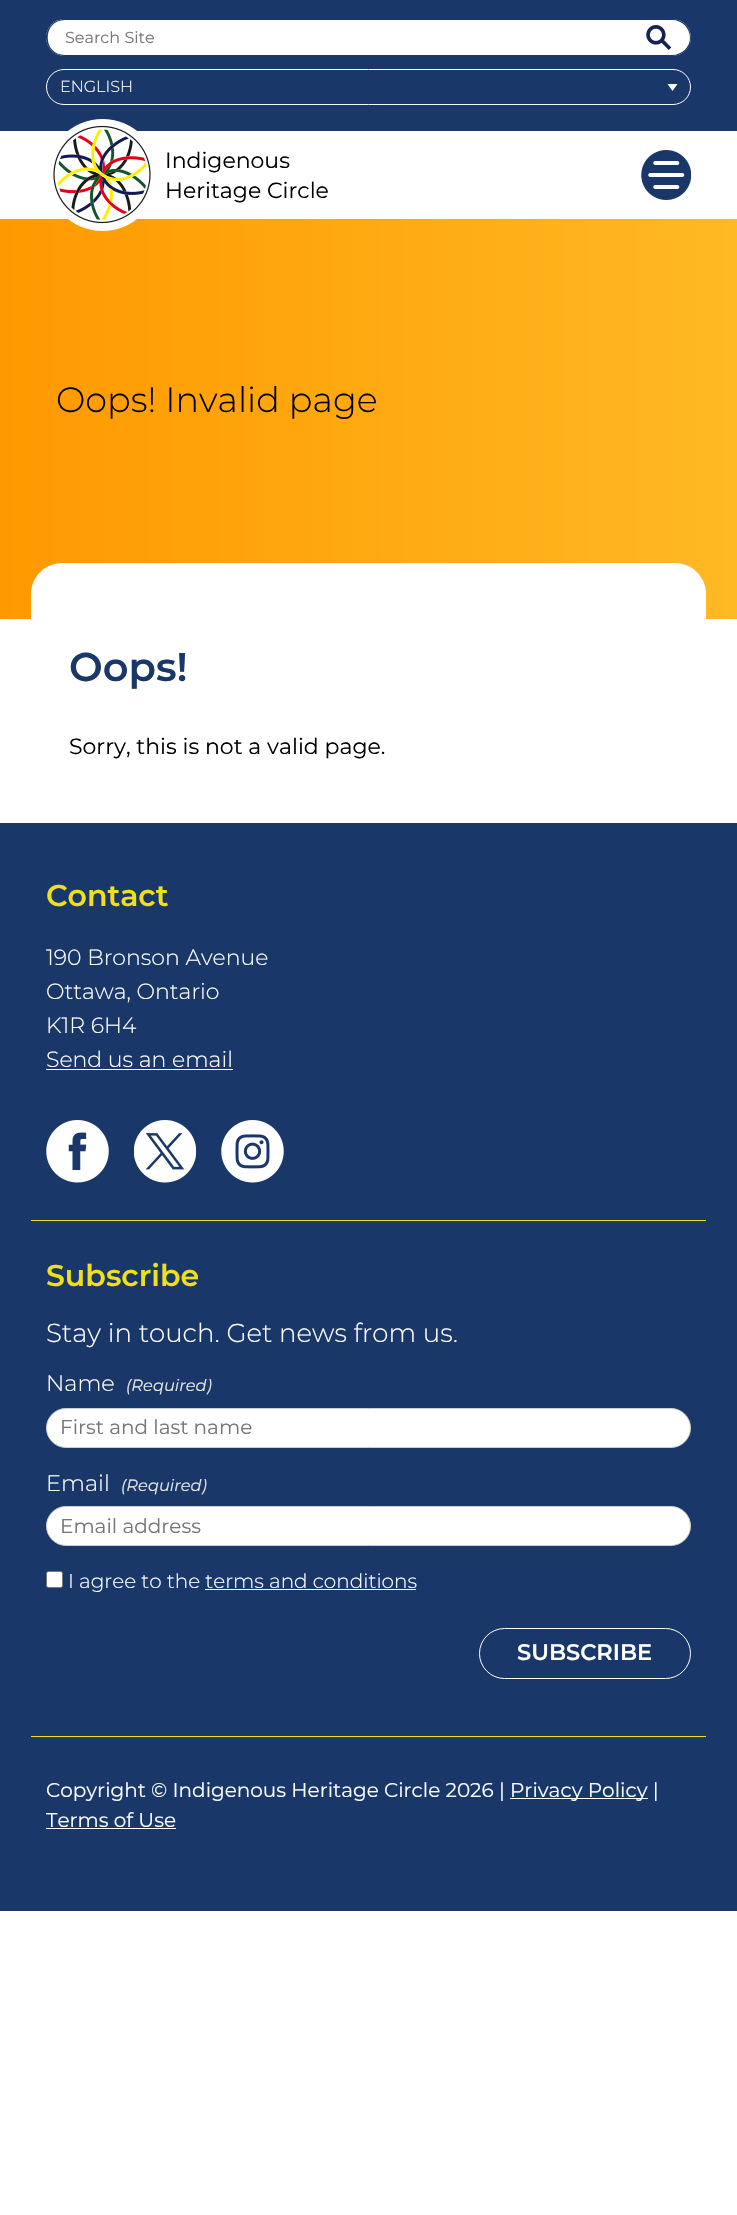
#include "include/core/SkBlurTypes.h"
#include "include/core/SkCanvas.h"
#include "include/core/SkData.h"
#include "include/core/SkFont.h"
#include "include/core/SkFontMgr.h"
#include "include/core/SkImage.h"
#include "include/core/SkMaskFilter.h"
#include "include/core/SkPaint.h"
#include "include/core/SkPathBuilder.h"
#include "include/core/SkTextBlob.h"
#include "include/effects/SkDashPathEffect.h"
#include "include/effects/SkGradientShader.h"
#include "include/utils/SkParsePath.h"

extern sk_sp<SkFontMgr> fontMgr;

void draw(SkCanvas* canvas) {
  SkPaint p;
  p.setAntiAlias(true);
  canvas->clear(SK_ColorWHITE);
  p.setColor(SkColorSetRGB(25, 56, 105));
  canvas->drawRect(SkRect::MakeLTRB(0, 0, 737, 131), p);
  p.setColor(SK_ColorWHITE);
  canvas->drawPath(SkPathBuilder().moveTo(64.5f, 19).lineTo(626, 19).lineTo(626, 56).lineTo(64.5f, 56).cubicTo(54.5f, 56, 46, 47.5f, 46, 37.5f).cubicTo(46, 27.5f, 54.5f, 19, 64.5f, 19).close().detach(), p);
  p.setColor(SkColorSetRGB(25, 56, 105));
  canvas->drawPath(SkPathBuilder(SkPathFillType::kEvenOdd).moveTo(65, 19).lineTo(626, 19).lineTo(626, 56).lineTo(65, 56).cubicTo(55, 56, 46, 48, 46, 38).cubicTo(46, 27, 55, 19, 65, 19).close().moveTo(65, 20).lineTo(626, 20).lineTo(626, 55).lineTo(65, 55).cubicTo(42, 55, 42, 20, 65, 20).close().detach(), p);
  p.setColor(SK_ColorWHITE);
  canvas->drawPath(SkPathBuilder().moveTo(626, 19).lineTo(672.5f, 19).cubicTo(682.5f, 19, 691, 27.5f, 691, 37.5f).cubicTo(691, 47.5f, 682.5f, 56, 672.5f, 56).lineTo(626, 56).close().detach(), p);
  canvas->drawImageRect(SkImages::DeferredFromEncodedData(SkData::MakeFromFileName("images/1.png")), SkRect::MakeLTRB(646, 25, 671, 50), SkSamplingOptions());
  p.setColor(SkColorSetRGB(25, 56, 105));
  canvas->drawPath(SkPathBuilder(SkPathFillType::kEvenOdd).moveTo(626, 19).lineTo(672, 19).cubicTo(683, 19, 691, 27, 691, 38).cubicTo(691, 48, 683, 56, 672, 56).lineTo(626, 56).close().moveTo(626, 20).lineTo(672, 20).cubicTo(682, 20, 690, 28, 690, 38).cubicTo(690, 47, 682, 55, 672, 55).lineTo(626, 55).close().detach(), p);
  p.setStyle(SkPaint::kStroke_Style);
  p.setStrokeWidth(1);
  p.setColor(SK_ColorWHITE);
  canvas->drawRoundRect(SkRect::MakeLTRB(46.5f, 69.5f, 690.5f, 104.5f), 17.5f, 17.5f, p);
  p.setStyle(SkPaint::kFill_Style);
  canvas->drawPath(SkPathBuilder().moveTo(667.5f, 84).lineTo(677.5f, 84).lineTo(672.5f, 91).close().detach(), p);
  {
    const SkColor colors[] = {SkColorSetRGB(255, 153, 0), SkColorSetRGB(255, 185, 35)};
    const float stops[] = {0, 1};
    const SkPoint ends[] = {{0, 419}, {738, 419}};
    p.setShader(SkGradientShader::MakeLinear(ends, colors, stops, 2, SkTileMode::kClamp));
    p.setAlpha(255);
  }
  canvas->drawRect(SkRect::MakeLTRB(0, 219, 737, 619), p);
  canvas->drawImageRect(SkImages::DeferredFromEncodedData(SkData::MakeFromFileName("images/2.png")), SkRect::MakeLTRB(53, 119, 151, 231), SkSamplingOptions());
  canvas->drawImageRect(SkImages::DeferredFromEncodedData(SkData::MakeFromFileName("images/3.png")), SkRect::MakeLTRB(641, 150, 691, 200), SkSamplingOptions());
  p.setShader(nullptr);
  p.setColor(SK_ColorWHITE);
  canvas->drawPath(SkPathBuilder().moveTo(62, 563).lineTo(675, 563).cubicTo(692, 563, 706, 577, 706, 594).lineTo(706, 823).lineTo(31, 823).lineTo(31, 594).cubicTo(31, 577, 45, 563, 62, 563).close().detach(), p);
  p.setColor(SkColorSetRGB(25, 56, 105));
  canvas->drawRect(SkRect::MakeLTRB(0, 823, 737, 1911), p);
  p.setColor(SK_ColorWHITE);
  canvas->drawRect(SkRect::MakeLTRB(46, 1069, 233, 1070), p);
  canvas->drawImageRect(SkImages::DeferredFromEncodedData(SkData::MakeFromFileName("images/4.png")), SkRect::MakeLTRB(46, 1120, 109, 1183), SkSamplingOptions());
  canvas->drawImageRect(SkImages::DeferredFromEncodedData(SkData::MakeFromFileName("images/5.png")), SkRect::MakeLTRB(134, 1120, 196, 1183), SkSamplingOptions());
  canvas->drawImageRect(SkImages::DeferredFromEncodedData(SkData::MakeFromFileName("images/6.png")), SkRect::MakeLTRB(221, 1120, 284, 1183), SkSamplingOptions());
  p.setColor(SkColorSetRGB(239, 223, 28));
  canvas->drawRect(SkRect::MakeLTRB(31, 1220, 706, 1221), p);
  p.setColor(SK_ColorWHITE);
  canvas->drawRoundRect(SkRect::MakeLTRB(46.5f, 1408.5f, 690.5f, 1447.5f), 19.5f, 19.5f, p);
  p.setStyle(SkPaint::kStroke_Style);
  p.setColor(SkColorSetRGB(204, 204, 204));
  canvas->drawRoundRect(SkRect::MakeLTRB(46.5f, 1408.5f, 690.5f, 1447.5f), 19.5f, 19.5f, p);
  p.setStyle(SkPaint::kFill_Style);
  p.setColor(SK_ColorWHITE);
  canvas->drawRoundRect(SkRect::MakeLTRB(46.5f, 1506.5f, 690.5f, 1545.5f), 19.5f, 19.5f, p);
  p.setStyle(SkPaint::kStroke_Style);
  p.setColor(SkColorSetRGB(204, 204, 204));
  canvas->drawRoundRect(SkRect::MakeLTRB(46.5f, 1506.5f, 690.5f, 1545.5f), 19.5f, 19.5f, p);
  p.setStyle(SkPaint::kFill_Style);
  p.setColor(SK_ColorWHITE);
  canvas->drawRoundRect(SkRect::MakeLTRB(46.5f, 1571.5f, 62.5f, 1587.5f), 2, 2, p);
  p.setStyle(SkPaint::kStroke_Style);
  p.setColor(SkColorSetRGB(118, 118, 118));
  canvas->drawRoundRect(SkRect::MakeLTRB(46.5f, 1571.5f, 62.5f, 1587.5f), 2, 2, p);
  p.setStyle(SkPaint::kFill_Style);
  p.setColor(SK_ColorWHITE);
  canvas->drawRect(SkRect::MakeLTRB(205, 1589, 416, 1590), p);
  p.setStyle(SkPaint::kStroke_Style);
  canvas->drawRoundRect(SkRect::MakeLTRB(479.5f, 1628.5f, 690.5f, 1678.5f), 25, 25, p);
  p.setStyle(SkPaint::kFill_Style);
  p.setColor(SkColorSetRGB(239, 223, 28));
  canvas->drawRect(SkRect::MakeLTRB(31, 1736, 706, 1737), p);
  p.setColor(SK_ColorWHITE);
  canvas->drawRect(SkRect::MakeLTRB(510, 1798, 648, 1799), p);
  canvas->drawRect(SkRect::MakeLTRB(46, 1828, 176, 1829), p);
  SkFont font1(fontMgr->matchFamilyStyle("Montserrat", SkFontStyle::Normal()), 16);
  font1.setSubpixel(true);
  p.setColor(SkColorSetRGB(117, 117, 117));
  canvas->drawString("Search Site", 65, 43, font1, p);
  SkFont font2(fontMgr->matchFamilyStyle("Montserrat", SkFontStyle(300, SkFontStyle::kNormal_Width, SkFontStyle::kUpright_Slant)), 16);
  font2.setSubpixel(true);
  p.setColor(SK_ColorWHITE);
  canvas->drawString("ENGLISH", 60, 92, font2, p);
  SkFont font3(fontMgr->matchFamilyStyle("Montserrat", SkFontStyle::Normal()), 22);
  font3.setSubpixel(true);
  p.setColor(SK_ColorBLACK);
  canvas->drawString("Indigenous", 165, 168, font3, p);
  canvas->drawString("Heritage Circle", 165, 198, font3, p);
  SkFont font4(fontMgr->matchFamilyStyle("Montserrat", SkFontStyle(300, SkFontStyle::kNormal_Width, SkFontStyle::kUpright_Slant)), 35);
  font4.setSubpixel(true);
  canvas->drawString("Oops! Invalid page", 56, 412, font4, p);
  SkFont font5(fontMgr->matchFamilyStyle("Montserrat", SkFontStyle(600, SkFontStyle::kNormal_Width, SkFontStyle::kUpright_Slant)), 40);
  font5.setSubpixel(true);
  p.setColor(SkColorSetRGB(25, 56, 105));
  canvas->drawString("Oops!", 69, 681, font5, p);
  p.setColor(SK_ColorBLACK);
  canvas->drawString("Sorry, this is not a valid page.", 69, 754, font3, p);
  SkFont font6(fontMgr->matchFamilyStyle("Montserrat", SkFontStyle(600, SkFontStyle::kNormal_Width, SkFontStyle::kUpright_Slant)), 30);
  font6.setSubpixel(true);
  p.setColor(SkColorSetRGB(239, 223, 28));
  canvas->drawString("Contact", 46, 906, font6, p);
  SkFont font7(fontMgr->matchFamilyStyle("Montserrat", SkFontStyle(300, SkFontStyle::kNormal_Width, SkFontStyle::kUpright_Slant)), 22);
  font7.setSubpixel(true);
  p.setColor(SK_ColorWHITE);
  canvas->drawString("190 Bronson Avenue", 46, 965, font7, p);
  canvas->drawString("Ottawa, Ontario", 46, 999, font7, p);
  canvas->drawString("K1R 6H4", 46, 1033, font7, p);
  canvas->drawString("Send us an email", 46, 1067, font7, p);
  p.setColor(SkColorSetRGB(239, 223, 28));
  canvas->drawString("Subscribe", 46, 1286, font6, p);
  SkFont font8(fontMgr->matchFamilyStyle("Montserrat", SkFontStyle(300, SkFontStyle::kNormal_Width, SkFontStyle::kUpright_Slant)), 26);
  font8.setSubpixel(true);
  p.setColor(SK_ColorWHITE);
  canvas->drawString("Stay in touch. Get news from us.", 46, 1342, font8, p);
  SkFont font9(fontMgr->matchFamilyStyle("Montserrat", SkFontStyle(300, SkFontStyle::kNormal_Width, SkFontStyle::kUpright_Slant)), 22.5f);
  font9.setSubpixel(true);
  canvas->drawString("Name", 46, 1391, font9, p);
  SkFont font10(fontMgr->matchFamilyStyle("Montserrat", SkFontStyle::Italic()), 16.25f);
  font10.setSubpixel(true);
  p.setColor(SkColorSetRGB(230, 230, 230));
  canvas->drawString("(Required)", 126, 1391, font10, p);
  SkFont font11(fontMgr->matchFamilyStyle("Montserrat", SkFontStyle::Normal()), 20);
  font11.setSubpixel(true);
  p.setColor(SkColorSetRGB(117, 117, 117));
  canvas->drawString("First and last name", 60, 1434, font11, p);
  p.setColor(SK_ColorWHITE);
  canvas->drawString("Email", 46, 1491, font9, p);
  p.setColor(SkColorSetRGB(230, 230, 230));
  canvas->drawString("(Required)", 121, 1491, font10, p);
  p.setColor(SkColorSetRGB(117, 117, 117));
  canvas->drawString("Email address", 60, 1533, font11, p);
  SkFont font12(fontMgr->matchFamilyStyle("Montserrat", SkFontStyle(300, SkFontStyle::kNormal_Width, SkFontStyle::kUpright_Slant)), 20);
  font12.setSubpixel(true);
  p.setColor(SK_ColorWHITE);
  canvas->drawString("I agree to the terms and conditions", 68, 1588, font12, p);
  SkFont font13(fontMgr->matchFamilyStyle("Montserrat", SkFontStyle(600, SkFontStyle::kNormal_Width, SkFontStyle::kUpright_Slant)), 22.5f);
  font13.setSubpixel(true);
  canvas->drawString("SUBSCRIBE", 517, 1660, font13, p);
  canvas->drawString("Copyright © Indigenous Heritage Circle 2026 |", 46, 1797, font11, p);
  canvas->drawString("Privacy Policy |", 510, 1797, font11, p);
  canvas->drawString("Terms of Use", 46, 1827, font11, p);
}
